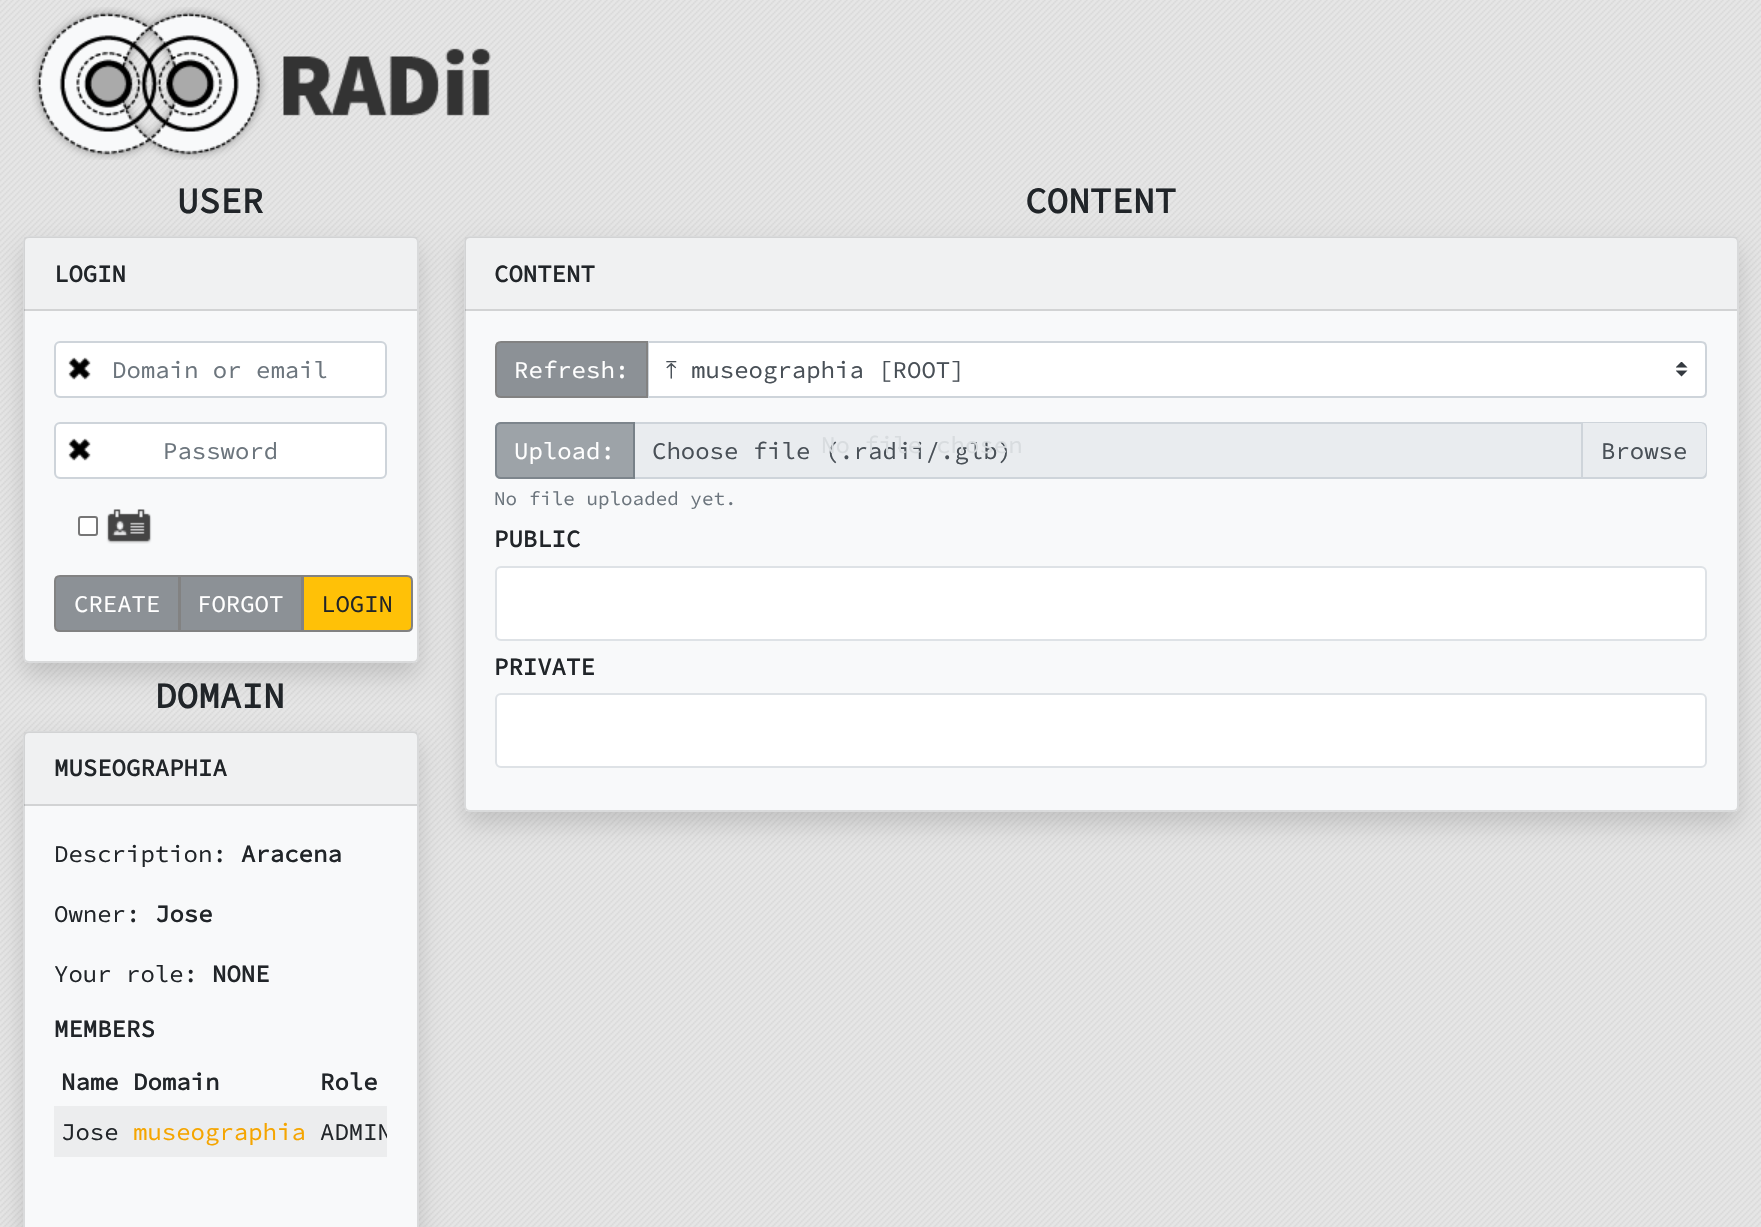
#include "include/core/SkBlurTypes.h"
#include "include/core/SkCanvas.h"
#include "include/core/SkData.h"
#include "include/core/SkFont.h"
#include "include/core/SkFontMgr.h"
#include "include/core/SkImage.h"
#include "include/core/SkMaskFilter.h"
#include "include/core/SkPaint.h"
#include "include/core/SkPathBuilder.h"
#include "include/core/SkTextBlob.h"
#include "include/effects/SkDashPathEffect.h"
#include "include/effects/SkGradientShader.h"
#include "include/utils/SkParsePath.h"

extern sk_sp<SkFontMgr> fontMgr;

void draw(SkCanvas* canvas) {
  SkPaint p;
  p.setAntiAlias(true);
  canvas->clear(SK_ColorWHITE);
  canvas->drawImageRect(SkImages::DeferredFromEncodedData(SkData::MakeFromFileName("images/1.png")), SkRect::MakeLTRB(0, 0, 1761, 1227), SkSamplingOptions());
  canvas->drawImageRect(SkImages::DeferredFromEncodedData(SkData::MakeFromFileName("images/2.png")), SkRect::MakeLTRB(32, 7, 491, 160), SkSamplingOptions());
  p.setColor(SkColorSetARGB(38, 0, 0, 0));
  p.setMaskFilter(SkMaskFilter::MakeBlur(kNormal_SkBlurStyle, 12));
  canvas->drawRoundRect(SkRect::MakeLTRB(23, 248, 419, 675), 6, 6, p);
  p.setMaskFilter(nullptr);
  p.setColor(SkColorSetRGB(248, 249, 250));
  canvas->drawRoundRect(SkRect::MakeLTRB(23, 236, 419, 663), 6, 6, p);
  p.setStyle(SkPaint::kStroke_Style);
  p.setStrokeWidth(2);
  p.setColor(SkColorSetARGB(31, 0, 0, 0));
  canvas->drawRoundRect(SkRect::MakeLTRB(24, 237, 418, 662), 5, 5, p);
  p.setStyle(SkPaint::kFill_Style);
  p.setColor(SkColorSetARGB(8, 0, 0, 0));
  canvas->drawRect(SkRect::MakeLTRB(24, 237, 417, 311), p);
  p.setColor(SkColorSetARGB(31, 0, 0, 0));
  canvas->drawRect(SkRect::MakeLTRB(24, 309, 417, 311), p);
  p.setColor(SK_ColorWHITE);
  canvas->drawRoundRect(SkRect::MakeLTRB(56, 342, 386, 396), 5, 5, p);
  canvas->drawImageRect(SkImages::DeferredFromEncodedData(SkData::MakeFromFileName("images/3.png")), SkRect::MakeLTRB(68, 357, 91, 380), SkSamplingOptions());
  p.setStyle(SkPaint::kStroke_Style);
  p.setColor(SkColorSetRGB(206, 212, 218));
  canvas->drawRoundRect(SkRect::MakeLTRB(55, 342, 386, 397), 5, 5, p);
  p.setStyle(SkPaint::kFill_Style);
  p.setColor(SK_ColorWHITE);
  canvas->drawRoundRect(SkRect::MakeLTRB(56, 423, 386, 477), 5, 5, p);
  canvas->drawImageRect(SkImages::DeferredFromEncodedData(SkData::MakeFromFileName("images/3.png")), SkRect::MakeLTRB(68, 438, 91, 461), SkSamplingOptions());
  p.setStyle(SkPaint::kStroke_Style);
  p.setColor(SkColorSetRGB(206, 212, 218));
  canvas->drawRoundRect(SkRect::MakeLTRB(55, 423, 386, 478), 5, 5, p);
  p.setStyle(SkPaint::kFill_Style);
  p.setColor(SK_ColorWHITE);
  canvas->drawRoundRect(SkRect::MakeLTRB(79, 517, 97, 535), 2, 2, p);
  p.setStyle(SkPaint::kStroke_Style);
  p.setColor(SkColorSetRGB(118, 118, 118));
  canvas->drawRoundRect(SkRect::MakeLTRB(79, 517, 97, 535), 2, 2, p);
  canvas->drawImageRect(SkImages::DeferredFromEncodedData(SkData::MakeFromFileName("images/4.png")), SkRect::MakeLTRB(106, 509, 152, 544), SkSamplingOptions());
  p.setStyle(SkPaint::kFill_Style);
  p.setColor(SkColorSetRGB(140, 145, 150));
  canvas->drawPath(SkPathBuilder().moveTo(60, 576).lineTo(179, 576).lineTo(179, 631).lineTo(60, 631).cubicTo(57, 631, 55, 629, 55, 626).lineTo(55, 581).cubicTo(55, 578, 57, 576, 60, 576).close().detach(), p);
  p.setStyle(SkPaint::kStroke_Style);
  p.setColor(SkColorSetRGB(130, 130, 130));
  canvas->drawPath(SkPathBuilder().moveTo(60, 576).lineTo(179, 576).lineTo(179, 631).lineTo(60, 631).cubicTo(57, 631, 55, 629, 55, 626).lineTo(55, 581).cubicTo(55, 578, 57, 576, 60, 576).close().detach(), p);
  p.setStyle(SkPaint::kFill_Style);
  p.setColor(SkColorSetRGB(140, 145, 150));
  canvas->drawRect(SkRect::MakeLTRB(180, 576, 302, 631), p);
  p.setStyle(SkPaint::kStroke_Style);
  p.setColor(SkColorSetRGB(130, 130, 130));
  canvas->drawRect(SkRect::MakeLTRB(180, 576, 302, 631), p);
  p.setStyle(SkPaint::kFill_Style);
  p.setColor(SkColorSetRGB(255, 193, 7));
  canvas->drawPath(SkPathBuilder().moveTo(303, 576).lineTo(407, 576).cubicTo(410, 576, 412, 578, 412, 581).lineTo(412, 626).cubicTo(412, 629, 410, 631, 407, 631).lineTo(303, 631).close().detach(), p);
  p.setStyle(SkPaint::kStroke_Style);
  p.setColor(SkColorSetRGB(130, 130, 130));
  canvas->drawPath(SkPathBuilder().moveTo(303, 576).lineTo(407, 576).cubicTo(410, 576, 412, 578, 412, 581).lineTo(412, 626).cubicTo(412, 629, 410, 631, 407, 631).lineTo(303, 631).close().detach(), p);
  p.setStyle(SkPaint::kFill_Style);
  p.setColor(SkColorSetARGB(38, 0, 0, 0));
  p.setMaskFilter(SkMaskFilter::MakeBlur(kNormal_SkBlurStyle, 12));
  canvas->drawRoundRect(SkRect::MakeLTRB(23, 743, 419, 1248), 6, 6, p);
  p.setMaskFilter(nullptr);
  p.setColor(SkColorSetRGB(248, 249, 250));
  canvas->drawRoundRect(SkRect::MakeLTRB(23, 731, 419, 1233), 6, 6, p);
  p.setStyle(SkPaint::kStroke_Style);
  p.setColor(SkColorSetARGB(31, 0, 0, 0));
  canvas->drawRoundRect(SkRect::MakeLTRB(24, 732, 418, 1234), 5, 5, p);
  p.setStyle(SkPaint::kFill_Style);
  p.setColor(SkColorSetARGB(8, 0, 0, 0));
  canvas->drawRect(SkRect::MakeLTRB(24, 732, 417, 806), p);
  p.setColor(SkColorSetARGB(31, 0, 0, 0));
  canvas->drawRect(SkRect::MakeLTRB(24, 804, 417, 806), p);
  p.setColor(SkColorSetRGB(236, 237, 238));
  canvas->drawRect(SkRect::MakeLTRB(54, 1106, 387, 1157), p);
  p.setColor(SkColorSetARGB(38, 0, 0, 0));
  p.setMaskFilter(SkMaskFilter::MakeBlur(kNormal_SkBlurStyle, 12));
  canvas->drawRoundRect(SkRect::MakeLTRB(464, 248, 1739, 824), 6, 6, p);
  p.setMaskFilter(nullptr);
  p.setColor(SkColorSetRGB(248, 249, 250));
  canvas->drawRoundRect(SkRect::MakeLTRB(464, 236, 1739, 812), 6, 6, p);
  p.setStyle(SkPaint::kStroke_Style);
  p.setColor(SkColorSetARGB(31, 0, 0, 0));
  canvas->drawRoundRect(SkRect::MakeLTRB(465, 237, 1738, 811), 5, 5, p);
  p.setStyle(SkPaint::kFill_Style);
  p.setColor(SkColorSetARGB(8, 0, 0, 0));
  canvas->drawRect(SkRect::MakeLTRB(465, 237, 1737, 311), p);
  p.setColor(SkColorSetARGB(31, 0, 0, 0));
  canvas->drawRect(SkRect::MakeLTRB(465, 309, 1737, 311), p);
  p.setColor(SK_ColorWHITE);
  canvas->drawPath(SkPathBuilder().moveTo(647, 341).lineTo(1701, 341).cubicTo(1704.5f, 341, 1707, 343.5f, 1707, 347).lineTo(1707, 392).cubicTo(1707, 395.5f, 1704.5f, 398, 1701, 398).lineTo(647, 398).close().detach(), p);
  canvas->drawImageRect(SkImages::DeferredFromEncodedData(SkData::MakeFromFileName("images/5.png")), SkRect::MakeLTRB(1676, 362, 1688, 377), SkSamplingOptions());
  p.setStyle(SkPaint::kStroke_Style);
  p.setColor(SkColorSetRGB(206, 212, 218));
  canvas->drawPath(SkPathBuilder().moveTo(648, 342).lineTo(1701, 342).cubicTo(1704, 342, 1706, 344, 1706, 347).lineTo(1706, 392).cubicTo(1706, 395, 1704, 397, 1701, 397).lineTo(648, 397).close().detach(), p);
  p.setStyle(SkPaint::kFill_Style);
  p.setColor(SkColorSetRGB(140, 145, 150));
  canvas->drawPath(SkPathBuilder().moveTo(501, 342).lineTo(647, 342).lineTo(647, 397).lineTo(501, 397).cubicTo(498, 397, 496, 395, 496, 392).lineTo(496, 347).cubicTo(496, 344, 498, 342, 501, 342).close().detach(), p);
  p.setStyle(SkPaint::kStroke_Style);
  p.setColor(SkColorSetRGB(130, 130, 130));
  canvas->drawPath(SkPathBuilder().moveTo(501, 342).lineTo(647, 342).lineTo(647, 397).lineTo(501, 397).cubicTo(498, 397, 496, 395, 496, 392).lineTo(496, 347).cubicTo(496, 344, 498, 342, 501, 342).close().detach(), p);
  p.setStyle(SkPaint::kFill_Style);
  p.setColor(SkColorSetRGB(233, 236, 239));
  canvas->drawPath(SkPathBuilder().moveTo(634, 423).lineTo(1701, 423).cubicTo(1704, 423, 1706, 425, 1706, 428).lineTo(1706, 473).cubicTo(1706, 476, 1704, 478, 1701, 478).lineTo(634, 478).close().detach(), p);
  p.setStyle(SkPaint::kStroke_Style);
  p.setColor(SkColorSetRGB(206, 212, 218));
  canvas->drawPath(SkPathBuilder().moveTo(634, 423).lineTo(1701, 423).cubicTo(1704, 423, 1706, 425, 1706, 428).lineTo(1706, 473).cubicTo(1706, 476, 1704, 478, 1701, 478).lineTo(634, 478).close().detach(), p);
  p.setStyle(SkPaint::kFill_Style);
  p.setColor(SkColorSetARGB(166, 108, 117, 125));
  canvas->drawPath(SkPathBuilder().moveTo(501, 422).lineTo(635, 422).lineTo(635, 479).lineTo(501, 479).cubicTo(497.5f, 479, 495, 476.5f, 495, 473).lineTo(495, 428).cubicTo(495, 424.5f, 497.5f, 422, 501, 422).close().detach(), p);
  p.setStyle(SkPaint::kStroke_Style);
  canvas->drawPath(SkPathBuilder().moveTo(501, 423).lineTo(634, 423).lineTo(634, 478).lineTo(501, 478).cubicTo(498, 478, 496, 476, 496, 473).lineTo(496, 428).cubicTo(496, 425, 498, 423, 501, 423).close().detach(), p);
  canvas->save();
  canvas->clipPath(SkPathBuilder().moveTo(635, 423).lineTo(1701, 423).cubicTo(1704, 423, 1706, 425, 1706, 428).lineTo(1706, 472).cubicTo(1706, 475, 1704, 477, 1701, 477).lineTo(635, 477).close().detach(), true);
  p.setStyle(SkPaint::kFill_Style);
  p.setColor(SkColorSetRGB(233, 236, 239));
  canvas->drawPath(SkPathBuilder().moveTo(1581, 423).lineTo(1700, 423).cubicTo(1703.5f, 423, 1706, 425.5f, 1706, 429).lineTo(1706, 471).cubicTo(1706, 474.5f, 1703.5f, 477, 1700, 477).lineTo(1581, 477).close().detach(), p);
  canvas->restore();
  p.setColor(SkColorSetRGB(206, 212, 218));
  canvas->drawRect(SkRect::MakeLTRB(1581, 423, 1583, 477), p);
  p.setColor(SK_ColorWHITE);
  canvas->drawRoundRect(SkRect::MakeLTRB(496, 567, 1706, 640), 5, 5, p);
  p.setStyle(SkPaint::kStroke_Style);
  p.setColor(SkColorSetRGB(222, 226, 230));
  canvas->drawRoundRect(SkRect::MakeLTRB(496, 567, 1706, 640), 5, 5, p);
  p.setStyle(SkPaint::kFill_Style);
  p.setColor(SK_ColorWHITE);
  canvas->drawRoundRect(SkRect::MakeLTRB(496, 694, 1706, 767), 5, 5, p);
  p.setStyle(SkPaint::kStroke_Style);
  p.setColor(SkColorSetRGB(222, 226, 230));
  canvas->drawRoundRect(SkRect::MakeLTRB(496, 694, 1706, 767), 5, 5, p);
  SkFont font1(fontMgr->matchFamilyStyle("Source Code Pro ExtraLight", SkFontStyle::Bold()), 36);
  font1.setSubpixel(true);
  p.setStyle(SkPaint::kFill_Style);
  p.setColor(SkColorSetRGB(33, 37, 41));
  canvas->drawString("USER", 177, 213, font1, p);
  SkFont font2(fontMgr->matchFamilyStyle("Source Code Pro ExtraLight", SkFontStyle::Bold()), 24);
  font2.setSubpixel(true);
  canvas->drawString("LOGIN", 54, 282, font2, p);
  SkFont font3(fontMgr->matchFamilyStyle("Source Code Pro ExtraLight", SkFontStyle(200, SkFontStyle::kNormal_Width, SkFontStyle::kUpright_Slant)), 24);
  font3.setSubpixel(true);
  p.setColor(SkColorSetRGB(108, 117, 125));
  canvas->drawString("Domain or email", 112, 378, font3, p);
  canvas->drawString("Password", 163, 459, font3, p);
  p.setColor(SK_ColorWHITE);
  canvas->drawString("CREATE", 74, 612, font3, p);
  canvas->drawString("FORGOT", 197, 612, font3, p);
  p.setColor(SkColorSetRGB(33, 37, 41));
  canvas->drawString("LOGIN", 321, 612, font3, p);
  canvas->drawString("DOMAIN", 155, 708, font1, p);
  canvas->drawString("MUSEOGRAPHIA", 54, 776, font2, p);
  canvas->drawString("Description:", 54, 862, font3, p);
  canvas->drawString("Aracena", 241, 862, font2, p);
  canvas->drawString("Owner:", 54, 922, font3, p);
  canvas->drawString("Jose", 155, 922, font2, p);
  canvas->drawString("Your role:", 54, 982, font3, p);
  canvas->drawString("NONE", 212, 982, font2, p);
  canvas->drawString("MEMBERS", 54, 1037, font2, p);
  canvas->drawString("Name Domain", 61, 1090, font2, p);
  canvas->drawString("Role", 320, 1090, font2, p);
  canvas->drawString("Jose", 61, 1140, font3, p);
  p.setColor(SkColorSetRGB(245, 165, 0));
  canvas->drawString("museographia", 133, 1140, font3, p);
  canvas->save();
  canvas->clipRect(SkRect::MakeLTRB(54, 1056, 387, 1181));
  p.setColor(SkColorSetRGB(33, 37, 41));
  canvas->drawString("ADMIN", 320, 1140, font3, p);
  canvas->restore();
  canvas->drawString("CONTENT", 1025, 213, font1, p);
  canvas->drawString("CONTENT", 494, 282, font2, p);
  p.setColor(SK_ColorWHITE);
  canvas->drawString("Refresh:", 514, 378, font3, p);
  SkFont font4(fontMgr->matchFamilyStyle("FreeSerif", SkFontStyle::Normal()), 24);
  font4.setSubpixel(true);
  p.setColor(SkColorSetRGB(73, 80, 87));
  canvas->drawString("⤒", 666, 378, font4, p);
  canvas->drawString("museographia [ROOT]", 691, 378, font3, p);
  p.setColor(SK_ColorWHITE);
  canvas->drawString("Upload:", 514, 459, font3, p);
  p.setColor(SkColorSetRGB(73, 80, 87));
  canvas->drawString("Choose file (.radii/.glb)", 652, 459, font3, p);
  p.setColor(SkColorSetRGB(216, 220, 223));
  canvas->drawString("No file chosen", 821, 453, font3, p);
  p.setColor(SkColorSetRGB(73, 80, 87));
  canvas->drawString("Browse", 1601, 459, font3, p);
  SkFont font5(fontMgr->matchFamilyStyle("Source Code Pro ExtraLight", SkFontStyle(200, SkFontStyle::kNormal_Width, SkFontStyle::kUpright_Slant)), 19.25f);
  font5.setSubpixel(true);
  p.setColor(SkColorSetRGB(108, 117, 125));
  canvas->drawString("No file uploaded yet.", 494, 505, font5, p);
  p.setColor(SkColorSetRGB(33, 37, 41));
  canvas->drawString("PUBLIC", 494, 547, font2, p);
  canvas->drawString("PRIVATE", 494, 675, font2, p);
}
